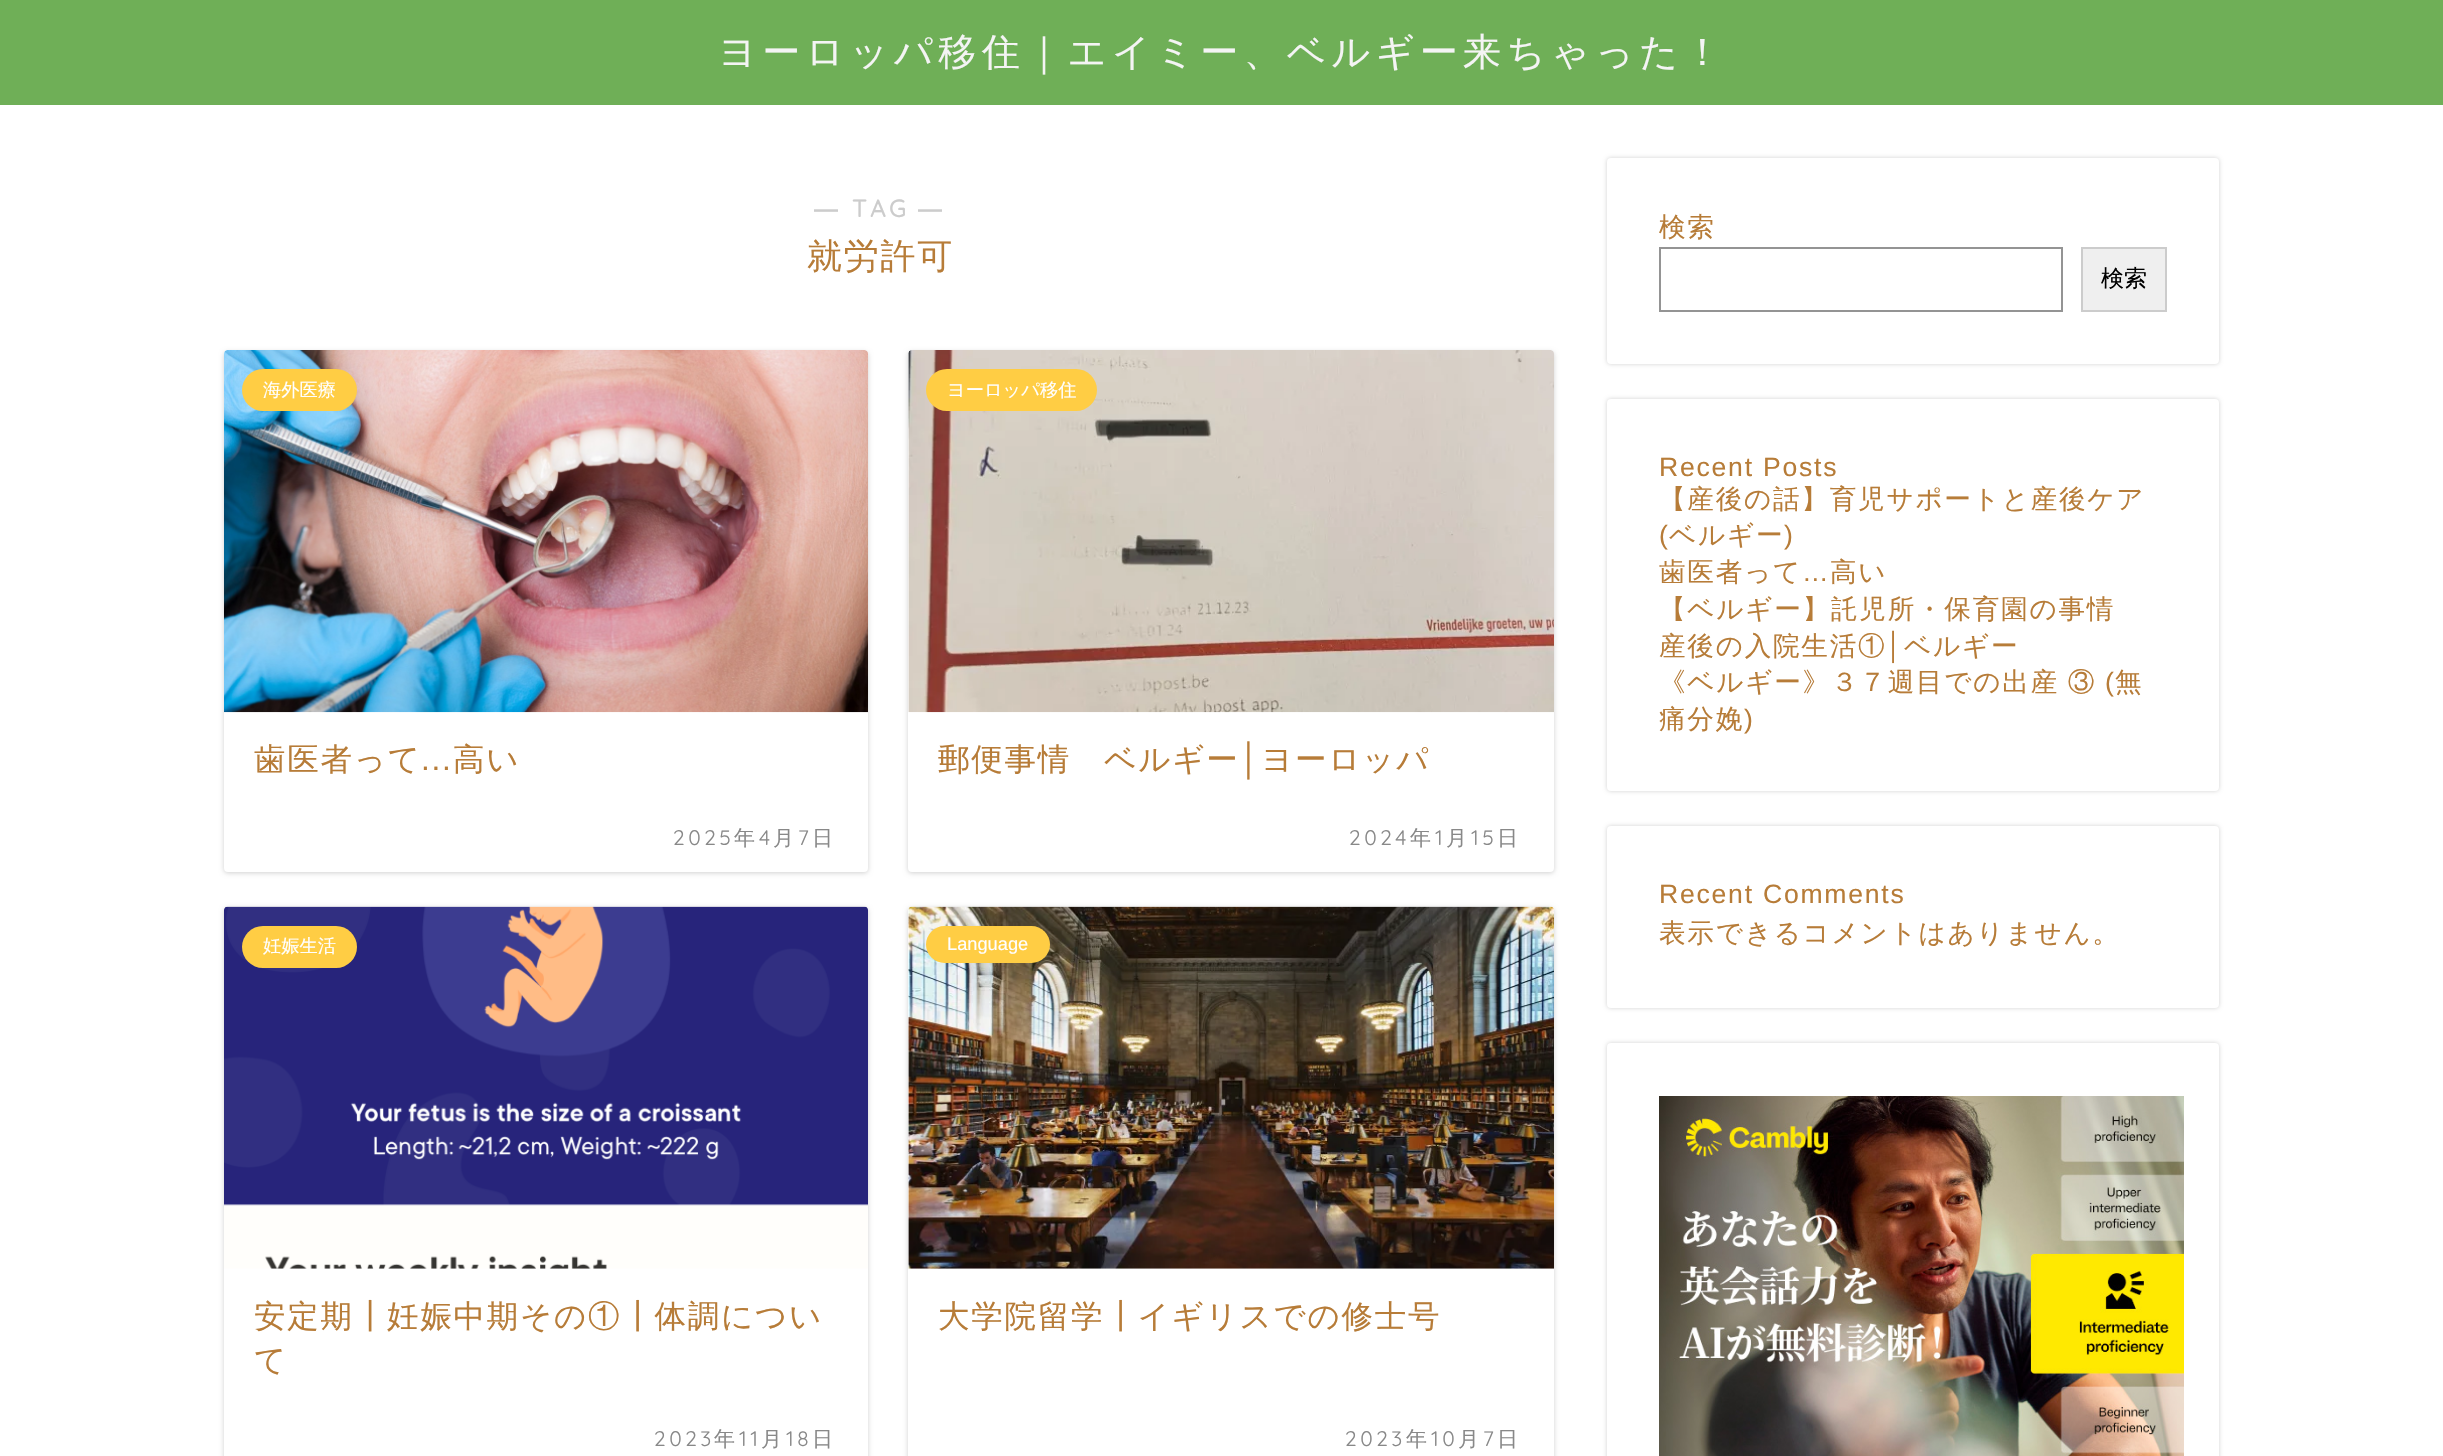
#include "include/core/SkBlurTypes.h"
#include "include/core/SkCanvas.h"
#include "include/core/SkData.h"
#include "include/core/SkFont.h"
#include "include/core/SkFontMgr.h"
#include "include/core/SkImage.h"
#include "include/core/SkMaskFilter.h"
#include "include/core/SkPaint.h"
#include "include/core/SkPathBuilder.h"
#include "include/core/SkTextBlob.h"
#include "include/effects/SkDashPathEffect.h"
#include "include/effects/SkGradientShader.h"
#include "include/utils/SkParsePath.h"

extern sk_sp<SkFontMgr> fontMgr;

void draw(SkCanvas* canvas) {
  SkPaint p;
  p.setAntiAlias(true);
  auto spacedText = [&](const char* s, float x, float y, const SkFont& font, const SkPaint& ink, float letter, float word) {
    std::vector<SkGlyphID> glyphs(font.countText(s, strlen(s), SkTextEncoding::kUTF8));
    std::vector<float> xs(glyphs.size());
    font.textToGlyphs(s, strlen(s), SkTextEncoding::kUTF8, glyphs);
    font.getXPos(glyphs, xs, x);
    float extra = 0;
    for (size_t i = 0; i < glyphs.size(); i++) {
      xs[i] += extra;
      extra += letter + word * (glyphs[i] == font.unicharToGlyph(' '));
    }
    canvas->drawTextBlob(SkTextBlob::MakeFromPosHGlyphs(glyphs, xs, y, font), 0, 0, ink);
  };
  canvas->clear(SK_ColorWHITE);
  p.setColor(SkColorSetRGB(111, 175, 87));
  canvas->drawRect(SkRect::MakeLTRB(0, 0, 2443, 105), p);
  p.setColor(SkColorSetARGB(46, 0, 0, 0));
  p.setMaskFilter(SkMaskFilter::MakeBlur(kNormal_SkBlurStyle, 2.5f));
  canvas->drawRoundRect(SkRect::MakeLTRB(224, 352, 868, 873), 4, 4, p);
  p.setMaskFilter(nullptr);
  p.setColor(SK_ColorWHITE);
  canvas->drawRoundRect(SkRect::MakeLTRB(224, 350, 868, 872), 4, 4, p);
  canvas->drawImageRect(SkImages::DeferredFromEncodedData(SkData::MakeFromFileName("images/1.png")), SkRect::MakeLTRB(224, 350, 868, 713), SkSamplingOptions());
  p.setColor(SkColorSetRGB(255, 205, 68));
  canvas->drawRoundRect(SkRect::MakeLTRB(242, 369, 357, 411), 21, 21, p);
  p.setColor(SkColorSetARGB(46, 0, 0, 0));
  p.setMaskFilter(SkMaskFilter::MakeBlur(kNormal_SkBlurStyle, 2.5f));
  canvas->drawRoundRect(SkRect::MakeLTRB(908, 352, 1554, 873), 4, 4, p);
  p.setMaskFilter(nullptr);
  p.setColor(SK_ColorWHITE);
  canvas->drawRoundRect(SkRect::MakeLTRB(908, 350, 1554, 872), 4, 4, p);
  canvas->drawImageRect(SkImages::DeferredFromEncodedData(SkData::MakeFromFileName("images/2.png")), SkRect::MakeLTRB(908, 350, 1554, 713), SkSamplingOptions());
  p.setColor(SkColorSetRGB(255, 205, 68));
  canvas->drawRoundRect(SkRect::MakeLTRB(926, 369, 1097, 411), 21, 21, p);
  canvas->save();
  canvas->clipPath(SkPathBuilder(SkPathFillType::kEvenOdd).moveTo(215, 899).lineTo(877, 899).lineTo(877, 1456).lineTo(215, 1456).close().moveTo(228, 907).lineTo(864, 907).cubicTo(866, 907, 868, 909, 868, 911).lineTo(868, 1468).cubicTo(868, 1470, 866, 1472, 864, 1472).lineTo(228, 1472).cubicTo(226, 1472, 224, 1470, 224, 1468).lineTo(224, 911).cubicTo(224, 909, 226, 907, 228, 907).close().detach(), true);
  p.setColor(SkColorSetARGB(46, 0, 0, 0));
  p.setMaskFilter(SkMaskFilter::MakeBlur(kNormal_SkBlurStyle, 2.5f));
  canvas->drawRoundRect(SkRect::MakeLTRB(224, 908, 868, 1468), 4, 4, p);
  p.setMaskFilter(nullptr);
  canvas->restore();
  canvas->drawImageRect(SkImages::DeferredFromEncodedData(SkData::MakeFromFileName("images/3.png")), SkRect::MakeLTRB(224, 906, 868, 1269), SkSamplingOptions());
  p.setColor(SkColorSetRGB(255, 205, 68));
  canvas->drawRoundRect(SkRect::MakeLTRB(242, 926, 357, 968), 21, 21, p);
  p.setColor(SkColorSetARGB(46, 0, 0, 0));
  p.setMaskFilter(SkMaskFilter::MakeBlur(kNormal_SkBlurStyle, 2.5f));
  canvas->drawRoundRect(SkRect::MakeLTRB(908, 908, 1554, 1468), 4, 4, p);
  p.setMaskFilter(nullptr);
  p.setColor(SK_ColorWHITE);
  canvas->drawRoundRect(SkRect::MakeLTRB(908, 907, 1554, 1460), 4, 4, p);
  canvas->drawImageRect(SkImages::DeferredFromEncodedData(SkData::MakeFromFileName("images/4.png")), SkRect::MakeLTRB(908, 906, 1554, 1269), SkSamplingOptions());
  p.setColor(SkColorSetRGB(255, 205, 68));
  canvas->drawRoundRect(SkRect::MakeLTRB(926, 926, 1050, 963), 18.5f, 18.5f, p);
  p.setColor(SkColorSetARGB(46, 0, 0, 0));
  p.setMaskFilter(SkMaskFilter::MakeBlur(kNormal_SkBlurStyle, 2));
  canvas->drawRoundRect(SkRect::MakeLTRB(1607, 158, 2219, 364), 4, 4, p);
  p.setMaskFilter(nullptr);
  p.setColor(SK_ColorWHITE);
  canvas->drawRoundRect(SkRect::MakeLTRB(1607, 158, 2219, 364), 4, 4, p);
  p.setStyle(SkPaint::kStroke_Style);
  p.setStrokeWidth(2);
  p.setColor(SkColorSetRGB(148, 148, 148));
  canvas->drawRect(SkRect::MakeLTRB(1660, 248, 2062, 311), p);
  p.setStyle(SkPaint::kFill_Style);
  p.setColor(SkColorSetRGB(239, 239, 239));
  canvas->drawRect(SkRect::MakeLTRB(2082, 248, 2166, 311), p);
  p.setStyle(SkPaint::kStroke_Style);
  p.setColor(SkColorSetRGB(204, 204, 204));
  canvas->drawRect(SkRect::MakeLTRB(2082, 248, 2166, 311), p);
  p.setStyle(SkPaint::kFill_Style);
  p.setColor(SkColorSetARGB(46, 0, 0, 0));
  p.setMaskFilter(SkMaskFilter::MakeBlur(kNormal_SkBlurStyle, 2));
  canvas->drawRoundRect(SkRect::MakeLTRB(1607, 399, 2219, 791), 4, 4, p);
  p.setMaskFilter(nullptr);
  p.setColor(SK_ColorWHITE);
  canvas->drawRoundRect(SkRect::MakeLTRB(1607, 399, 2219, 791), 4, 4, p);
  p.setColor(SkColorSetARGB(46, 0, 0, 0));
  p.setMaskFilter(SkMaskFilter::MakeBlur(kNormal_SkBlurStyle, 2));
  canvas->drawRoundRect(SkRect::MakeLTRB(1607, 826, 2219, 1008), 4, 4, p);
  p.setMaskFilter(nullptr);
  p.setColor(SK_ColorWHITE);
  canvas->drawRoundRect(SkRect::MakeLTRB(1607, 826, 2219, 1008), 4, 4, p);
  p.setColor(SkColorSetARGB(46, 0, 0, 0));
  p.setMaskFilter(SkMaskFilter::MakeBlur(kNormal_SkBlurStyle, 2));
  canvas->drawRoundRect(SkRect::MakeLTRB(1607, 1043, 2219, 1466), 4, 4, p);
  p.setMaskFilter(nullptr);
  p.setColor(SK_ColorWHITE);
  canvas->drawRoundRect(SkRect::MakeLTRB(1607, 1043, 2219, 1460), 4, 4, p);
  canvas->drawImageRect(SkImages::DeferredFromEncodedData(SkData::MakeFromFileName("images/5.png")), SkRect::MakeLTRB(1659, 1096, 2184, 1456), SkSamplingOptions());
  SkFont font1(fontMgr->matchFamilyStyle("WenQuanYi Zen Hei", SkFontStyle(500, SkFontStyle::kNormal_Width, SkFontStyle::kUpright_Slant)), 38.1f);
  font1.setSubpixel(true);
  p.setColor(SkColorSetRGB(244, 244, 244));
  spacedText("ヨーロッパ移住｜エイミー、ベルギー来ちゃった！", 718, 65, font1, p, 5.25f, 0);
  SkFont font2(fontMgr->matchFamilyStyle("Liberation Sans", SkFontStyle::Bold()), 24);
  font2.setSubpixel(true);
  p.setColor(SkColorSetRGB(204, 204, 204));
  spacedText("―", 814, 217, font2, p, 3.5f, 0);
  SkFont font3(fontMgr->matchFamilyStyle("Quicksand", SkFontStyle::Bold()), 24);
  font3.setSubpixel(true);
  spacedText("TAG", 852, 217, font3, p, 3.5f, 0);
  spacedText("―", 918, 217, font2, p, 3.5f, 0);
  SkFont font4(fontMgr->matchFamilyStyle("WenQuanYi Zen Hei", SkFontStyle(500, SkFontStyle::kNormal_Width, SkFontStyle::kUpright_Slant)), 35);
  font4.setSubpixel(true);
  p.setColor(SkColorSetRGB(183, 124, 56));
  spacedText("就労許可", 807, 268, font4, p, 1.75f, 0);
  SkFont font5(fontMgr->matchFamilyStyle("WenQuanYi Zen Hei", SkFontStyle(500, SkFontStyle::kNormal_Width, SkFontStyle::kUpright_Slant)), 18.25f);
  font5.setSubpixel(true);
  p.setColor(SK_ColorWHITE);
  canvas->drawString("海外医療", 263, 396, font5, p);
  SkFont font6(fontMgr->matchFamilyStyle("WenQuanYi Zen Hei", SkFontStyle(500, SkFontStyle::kNormal_Width, SkFontStyle::kUpright_Slant)), 31.5f);
  font6.setSubpixel(true);
  p.setColor(SkColorSetRGB(183, 124, 56));
  spacedText("歯医者って", 254, 770, font6, p, 1.75f, 0);
  SkFont font7(fontMgr->matchFamilyStyle("Liberation Sans", SkFontStyle::Normal()), 31.5f);
  font7.setSubpixel(true);
  spacedText("...", 421, 770, font7, p, 1.75f, 0);
  spacedText("高い", 453, 770, font6, p, 1.75f, 0);
  SkFont font8(fontMgr->matchFamilyStyle("Quicksand", SkFontStyle(300, SkFontStyle::kNormal_Width, SkFontStyle::kUpright_Slant)), 21);
  font8.setSubpixel(true);
  p.setColor(SkColorSetRGB(136, 136, 136));
  spacedText("2025", 673, 845, font8, p, 3.5f, 0);
  SkFont font9(fontMgr->matchFamilyStyle("WenQuanYi Zen Hei", SkFontStyle(500, SkFontStyle::kNormal_Width, SkFontStyle::kUpright_Slant)), 21);
  font9.setSubpixel(true);
  spacedText("年", 734, 845, font9, p, 3.5f, 0);
  spacedText("4", 759, 845, font8, p, 3.5f, 0);
  spacedText("月", 773, 845, font9, p, 3.5f, 0);
  spacedText("7", 798, 845, font8, p, 3.5f, 0);
  spacedText("日", 812, 845, font9, p, 3.5f, 0);
  p.setColor(SK_ColorWHITE);
  canvas->drawString("ヨーロッパ移住", 947, 396, font5, p);
  p.setColor(SkColorSetRGB(183, 124, 56));
  spacedText("郵便事情　ベルギー", 938, 770, font6, p, 1.75f, 0);
  spacedText("│", 1240, 770, font7, p, 1.75f, 0);
  spacedText("ヨーロッパ", 1261, 770, font6, p, 1.75f, 0);
  p.setColor(SkColorSetRGB(136, 136, 136));
  spacedText("2024", 1349, 845, font8, p, 3.5f, 0);
  spacedText("年", 1410, 845, font9, p, 3.5f, 0);
  spacedText("1", 1435, 845, font8, p, 3.5f, 0);
  spacedText("月", 1446, 845, font9, p, 3.5f, 0);
  spacedText("15", 1471, 845, font8, p, 3.5f, 0);
  spacedText("日", 1497, 845, font9, p, 3.5f, 0);
  p.setColor(SK_ColorWHITE);
  canvas->drawString("妊娠生活", 263, 952, font5, p);
  p.setColor(SkColorSetRGB(183, 124, 56));
  spacedText("安定期┃妊娠中期その①┃体調につい", 254, 1327, font6, p, 1.75f, 0);
  spacedText("て", 254, 1371, font6, p, 1.75f, 0);
  p.setColor(SkColorSetRGB(136, 136, 136));
  spacedText("2023", 654, 1446, font8, p, 3.5f, 0);
  spacedText("年", 714, 1446, font9, p, 3.5f, 0);
  spacedText("11", 739, 1446, font8, p, 3.5f, 0);
  spacedText("月", 761, 1446, font9, p, 3.5f, 0);
  spacedText("18", 786, 1446, font8, p, 3.5f, 0);
  spacedText("日", 812, 1446, font9, p, 3.5f, 0);
  SkFont font10(fontMgr->matchFamilyStyle("Liberation Sans", SkFontStyle::Normal()), 18.25f);
  font10.setSubpixel(true);
  p.setColor(SK_ColorWHITE);
  canvas->drawString("Language", 947, 950, font10, p);
  p.setColor(SkColorSetRGB(183, 124, 56));
  spacedText("大学院留学┃イギリスでの修士号", 938, 1327, font6, p, 1.75f, 0);
  p.setColor(SkColorSetRGB(136, 136, 136));
  spacedText("2023", 1345, 1446, font8, p, 3.5f, 0);
  spacedText("年", 1406, 1446, font9, p, 3.5f, 0);
  spacedText("10", 1431, 1446, font8, p, 3.5f, 0);
  spacedText("月", 1458, 1446, font9, p, 3.5f, 0);
  spacedText("7", 1483, 1446, font8, p, 3.5f, 0);
  spacedText("日", 1497, 1446, font9, p, 3.5f, 0);
  SkFont font11(fontMgr->matchFamilyStyle("WenQuanYi Zen Hei", SkFontStyle(500, SkFontStyle::kNormal_Width, SkFontStyle::kUpright_Slant)), 26.6f);
  font11.setSubpixel(true);
  p.setColor(SkColorSetRGB(183, 124, 56));
  spacedText("検索", 1659, 236, font11, p, 1.75f, 0);
  SkFont font12(fontMgr->matchFamilyStyle("WenQuanYi Zen Hei", SkFontStyle(500, SkFontStyle::kNormal_Width, SkFontStyle::kUpright_Slant)), 23);
  font12.setSubpixel(true);
  p.setColor(SK_ColorBLACK);
  canvas->drawString("検索", 2101, 286, font12, p);
  SkFont font13(fontMgr->matchFamilyStyle("Liberation Sans", SkFontStyle::Normal()), 26.6f);
  font13.setSubpixel(true);
  p.setColor(SkColorSetRGB(183, 124, 56));
  spacedText("Recent Posts", 1659, 476, font13, p, 1.75f, 0);
  spacedText("【産後の話】育児サポートと産後ケア", 1659, 508, font11, p, 1.75f, 0);
  spacedText("(", 1659, 544, font13, p, 1.75f, 0);
  spacedText("ベルギー", 1669, 544, font11, p, 1.75f, 0);
  spacedText(")", 1784, 544, font13, p, 1.75f, 0);
  spacedText("歯医者って", 1659, 581, font11, p, 1.75f, 0);
  spacedText("…", 1802, 581, font13, p, 1.75f, 0);
  spacedText("高い", 1830, 581, font11, p, 1.75f, 0);
  spacedText("【ベルギー】託児所・保育園の事情", 1659, 618, font11, p, 1.75f, 0);
  spacedText("産後の入院生活①", 1659, 655, font11, p, 1.75f, 0);
  spacedText("│", 1886, 655, font13, p, 1.75f, 0);
  spacedText("ベルギー", 1904, 655, font11, p, 1.75f, 0);
  spacedText("《ベルギー》３７週目での出産 ③", 1659, 691, font11, p, 1.75f, -1);
  spacedText("(", 2105, 691, font13, p, 1.75f, 0);
  spacedText("無", 2115, 691, font11, p, 1.75f, 0);
  spacedText("痛分娩", 1659, 728, font11, p, 1.75f, 0);
  spacedText(")", 1744, 728, font13, p, 1.75f, 0);
  spacedText("Recent Comments", 1659, 903, font13, p, 1.75f, 0);
  spacedText("表示できるコメントはありません。", 1659, 942, font11, p, 1.75f, 0);
}
